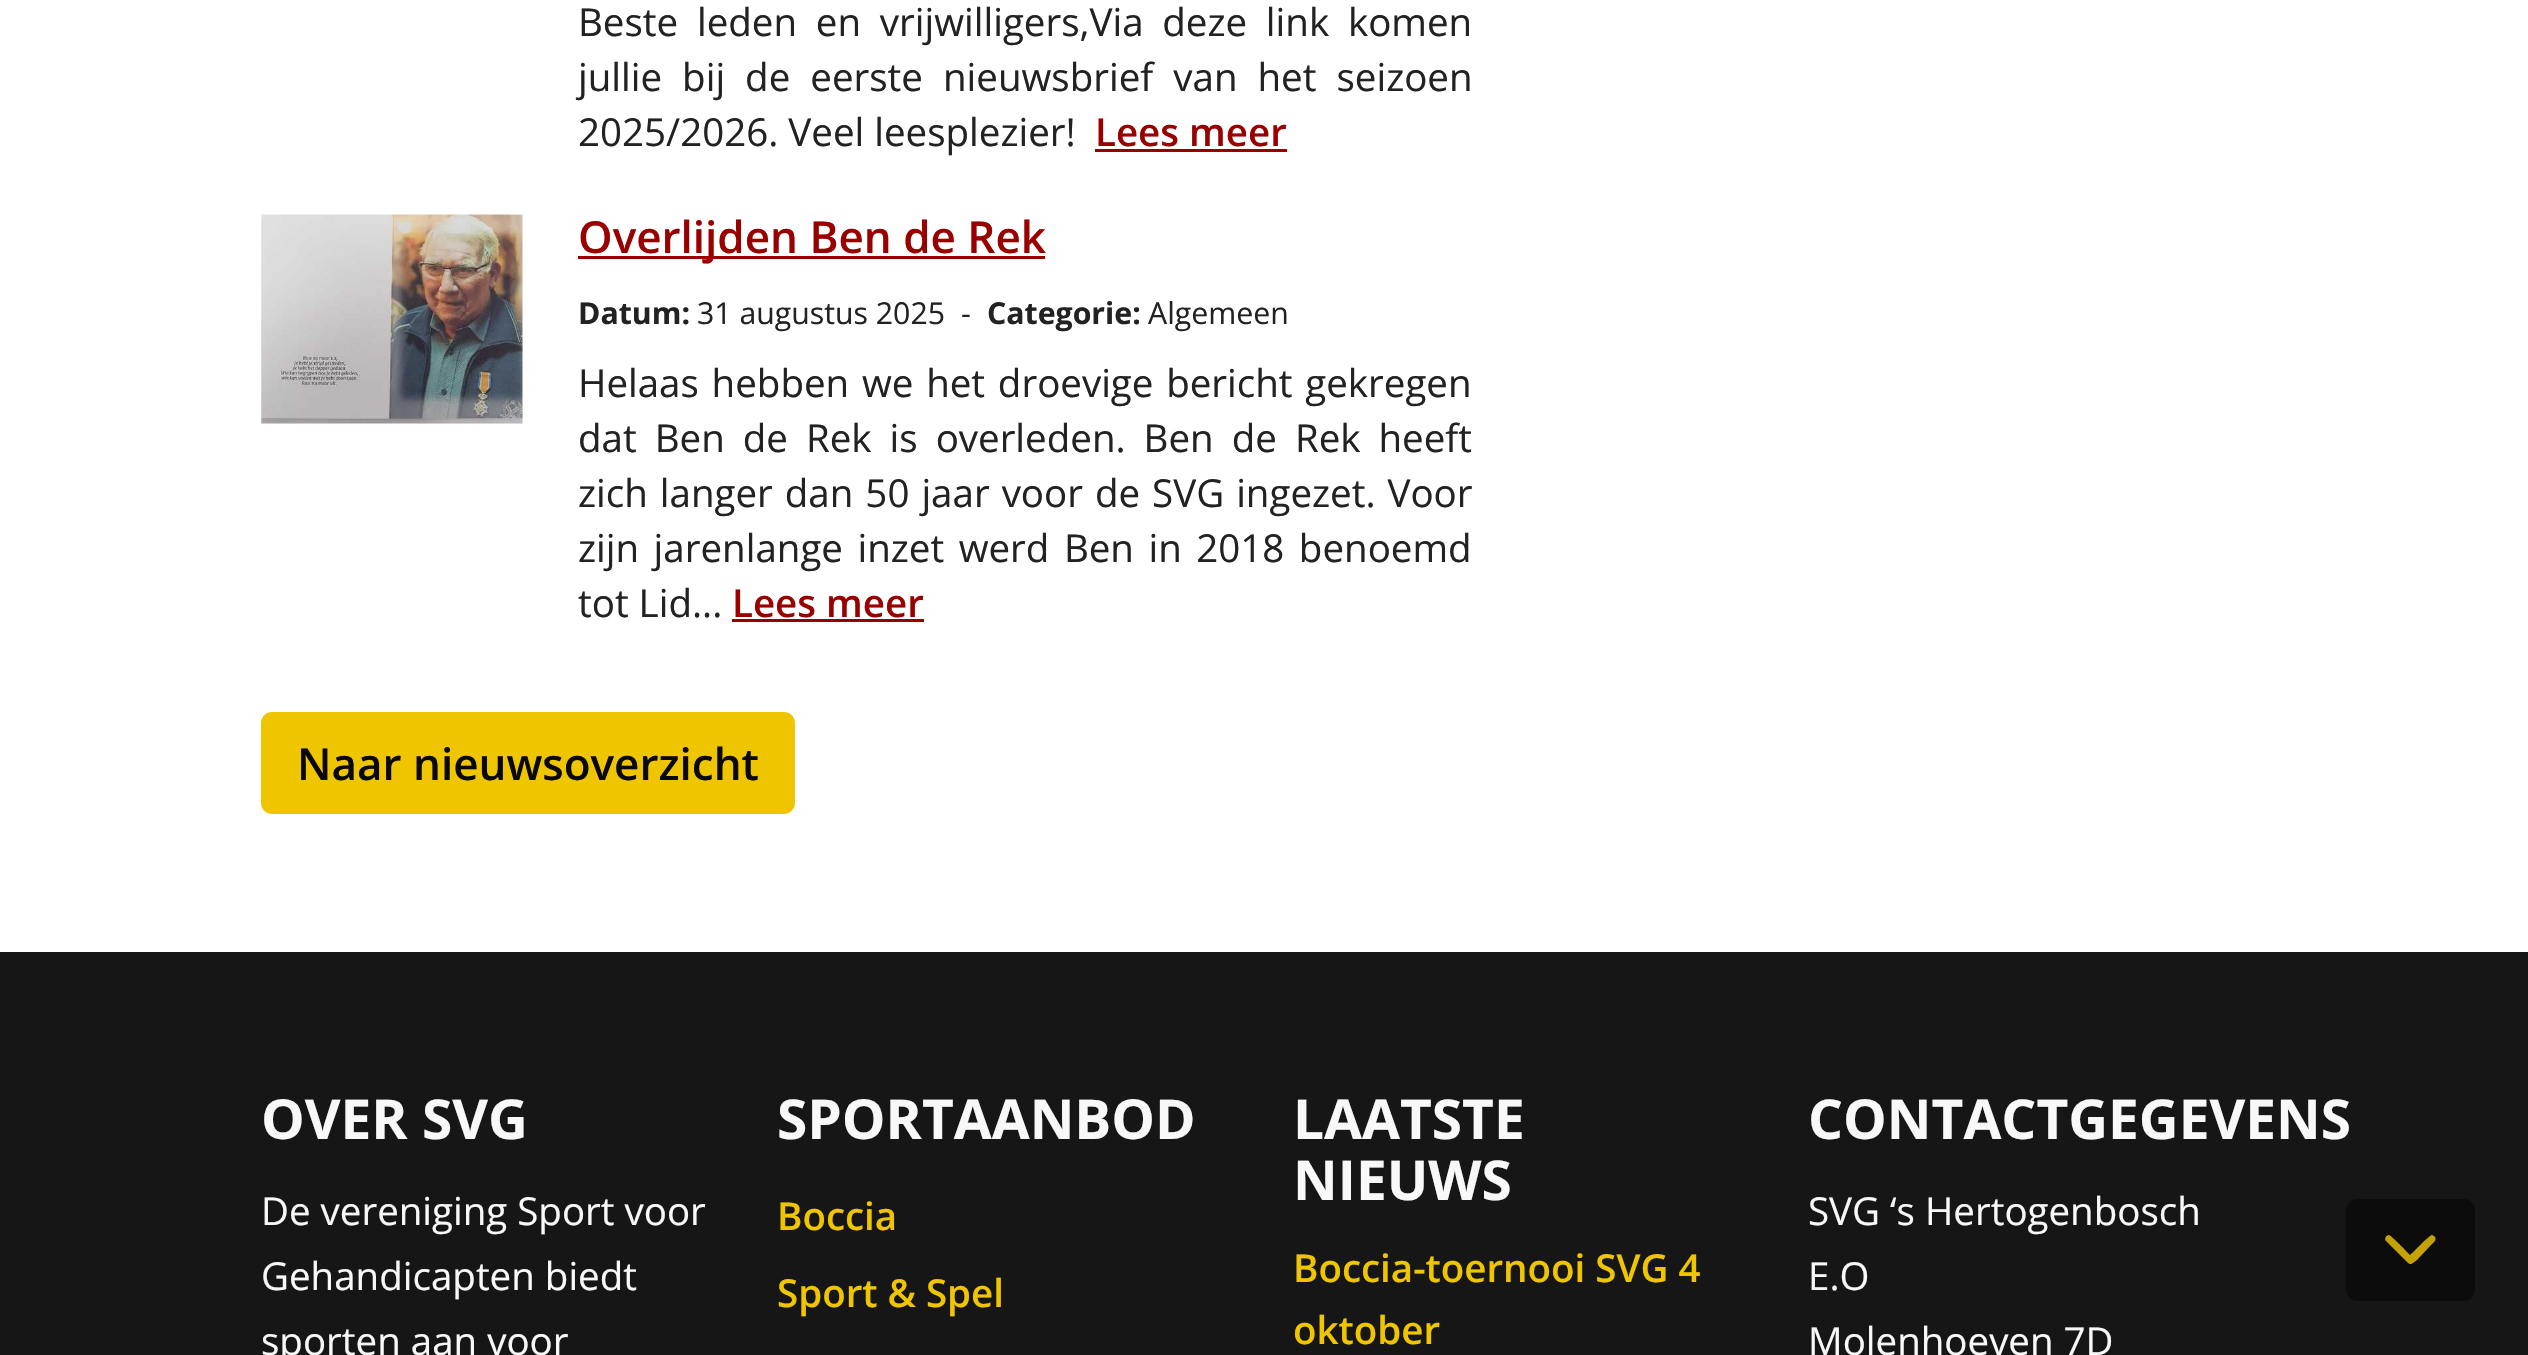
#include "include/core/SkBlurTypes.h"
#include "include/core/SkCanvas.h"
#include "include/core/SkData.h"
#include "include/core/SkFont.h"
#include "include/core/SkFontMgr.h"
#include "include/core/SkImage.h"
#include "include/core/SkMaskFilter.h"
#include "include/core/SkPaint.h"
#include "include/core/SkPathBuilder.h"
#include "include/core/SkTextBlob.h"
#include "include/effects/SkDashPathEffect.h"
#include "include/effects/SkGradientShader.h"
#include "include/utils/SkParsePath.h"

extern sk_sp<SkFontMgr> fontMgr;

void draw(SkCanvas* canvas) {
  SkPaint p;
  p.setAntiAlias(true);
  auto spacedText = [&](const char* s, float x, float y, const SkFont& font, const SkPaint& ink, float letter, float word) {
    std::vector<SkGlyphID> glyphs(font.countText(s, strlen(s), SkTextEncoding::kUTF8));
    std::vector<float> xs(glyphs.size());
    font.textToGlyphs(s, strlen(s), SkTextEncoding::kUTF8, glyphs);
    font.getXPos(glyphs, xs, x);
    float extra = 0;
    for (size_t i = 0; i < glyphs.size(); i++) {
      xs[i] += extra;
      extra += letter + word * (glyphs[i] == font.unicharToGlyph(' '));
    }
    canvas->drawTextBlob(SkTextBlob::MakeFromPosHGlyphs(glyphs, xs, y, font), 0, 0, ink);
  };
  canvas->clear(SK_ColorWHITE);
  p.setColor(SkColorSetRGB(153, 0, 0));
  canvas->drawRect(SkRect::MakeLTRB(1095, 149, 1287, 152), p);
  canvas->drawImageRect(SkImages::DeferredFromEncodedData(SkData::MakeFromFileName("images/1.png")), SkRect::MakeLTRB(261, 214, 523, 424), SkSamplingOptions());
  canvas->drawRect(SkRect::MakeLTRB(578, 256, 1045, 259), p);
  canvas->drawRect(SkRect::MakeLTRB(732, 619, 924, 622), p);
  p.setColor(SkColorSetRGB(239, 197, 0));
  canvas->drawRoundRect(SkRect::MakeLTRB(262.5f, 713.5f, 793.5f, 812.5f), 9.5f, 9.5f, p);
  p.setStyle(SkPaint::kStroke_Style);
  p.setStrokeWidth(3);
  canvas->drawRoundRect(SkRect::MakeLTRB(262.5f, 713.5f, 793.5f, 812.5f), 9.5f, 9.5f, p);
  p.setStyle(SkPaint::kFill_Style);
  p.setColor(SkColorSetRGB(22, 22, 22));
  canvas->drawRect(SkRect::MakeLTRB(0, 952, 2528, 1355), p);
  p.setColor(SkColorSetRGB(12, 12, 12));
  canvas->drawRoundRect(SkRect::MakeLTRB(2346, 1199, 2475, 1301), 11, 11, p);
  p.setColor(SkColorSetRGB(196, 162, 4));
  canvas->drawPath(SkPathBuilder().moveTo(2408, 1263).cubicTo(2411, 1266, 2414, 1262, 2417, 1260).lineTo(2431, 1245).cubicTo(2433, 1243, 2437, 1240, 2435, 1237).cubicTo(2434, 1236, 2433, 1235, 2432, 1235).cubicTo(2428, 1236, 2414, 1252, 2410, 1255).cubicTo(2407, 1252, 2392, 1236, 2389, 1235).cubicTo(2386, 1235, 2384, 1239, 2386, 1241).close().detach(), p);
  SkFont font1(fontMgr->matchFamilyStyle("Open Sans", SkFontStyle::Normal()), 38.5f);
  font1.setSubpixel(true);
  p.setColor(SkColorSetRGB(34, 34, 34));
  spacedText("Beste leden en vrijwilligers,Via deze link komen", 578, 36, font1, p, 0, 8.75f);
  spacedText("jullie bij de eerste nieuwsbrief van het seizoen", 578, 91, font1, p, 0, 10);
  canvas->drawString("2025/2026. Veel leesplezier!", 578, 146, font1, p);
  SkFont font2(fontMgr->matchFamilyStyle("Open Sans", SkFontStyle(600, SkFontStyle::kNormal_Width, SkFontStyle::kUpright_Slant)), 38.5f);
  font2.setSubpixel(true);
  p.setColor(SkColorSetRGB(153, 0, 0));
  canvas->drawString("Lees meer", 1095, 146, font2, p);
  SkFont font3(fontMgr->matchFamilyStyle("Open Sans", SkFontStyle(600, SkFontStyle::kNormal_Width, SkFontStyle::kUpright_Slant)), 44);
  font3.setSubpixel(true);
  canvas->drawString("Overlijden Ben de Rek", 578, 253, font3, p);
  SkFont font4(fontMgr->matchFamilyStyle("Open Sans", SkFontStyle::Bold()), 30.25f);
  font4.setSubpixel(true);
  p.setColor(SkColorSetRGB(34, 34, 34));
  canvas->drawString("Datum:", 578, 324, font4, p);
  SkFont font5(fontMgr->matchFamilyStyle("Open Sans", SkFontStyle::Normal()), 30.25f);
  font5.setSubpixel(true);
  canvas->drawString("31 augustus 2025", 697, 324, font5, p);
  canvas->drawString("-", 961, 324, font5, p);
  canvas->drawString("Categorie:", 987, 324, font4, p);
  canvas->drawString("Algemeen", 1148, 324, font5, p);
  spacedText("Helaas hebben we het droevige bericht gekregen", 578, 397, font1, p, 0, 2.75f);
  spacedText("dat Ben de Rek is overleden. Ben de Rek heeft", 578, 452, font1, p, 0, 8);
  spacedText("zich langer dan 50 jaar voor de SVG ingezet. Voor", 578, 507, font1, p, 0, 2);
  spacedText("zijn jarenlange inzet werd Ben in 2018 benoemd", 578, 562, font1, p, 0, 4.5f);
  canvas->drawString("tot Lid...", 578, 617, font1, p);
  p.setColor(SkColorSetRGB(153, 0, 0));
  canvas->drawString("Lees meer", 732, 617, font2, p);
  p.setColor(SkColorSetRGB(9, 9, 9));
  canvas->drawString("Naar nieuwsoverzicht", 297, 780, font3, p);
  SkFont font6(fontMgr->matchFamilyStyle("Open Sans", SkFontStyle::Bold()), 55);
  font6.setSubpixel(true);
  p.setColor(SkColorSetRGB(248, 248, 248));
  canvas->drawString("OVER SVG", 261, 1139, font6, p);
  canvas->drawString("De vereniging Sport voor", 261, 1225, font1, p);
  canvas->drawString("Gehandicapten biedt", 261, 1290, font1, p);
  canvas->drawString("sporten aan voor", 261, 1355, font1, p);
  canvas->drawString("SPORTAANBOD", 777, 1139, font6, p);
  p.setColor(SkColorSetRGB(239, 197, 0));
  canvas->drawString("Boccia", 777, 1230, font2, p);
  canvas->drawString("Sport & Spel", 777, 1307, font2, p);
  p.setColor(SkColorSetRGB(248, 248, 248));
  canvas->drawString("LAATSTE", 1293, 1139, font6, p);
  canvas->drawString("NIEUWS", 1293, 1200, font6, p);
  p.setColor(SkColorSetRGB(239, 197, 0));
  canvas->drawString("Boccia-toernooi SVG 4", 1293, 1282, font2, p);
  canvas->drawString("oktober", 1293, 1344, font2, p);
  p.setColor(SkColorSetRGB(248, 248, 248));
  canvas->drawString("CONTACTGEGEVENS", 1808, 1139, font6, p);
  canvas->drawString("SVG ‘s Hertogenbosch", 1808, 1225, font1, p);
  canvas->drawString("E.O", 1808, 1290, font1, p);
  canvas->drawString("Molenhoeven 7D", 1808, 1355, font1, p);
}
